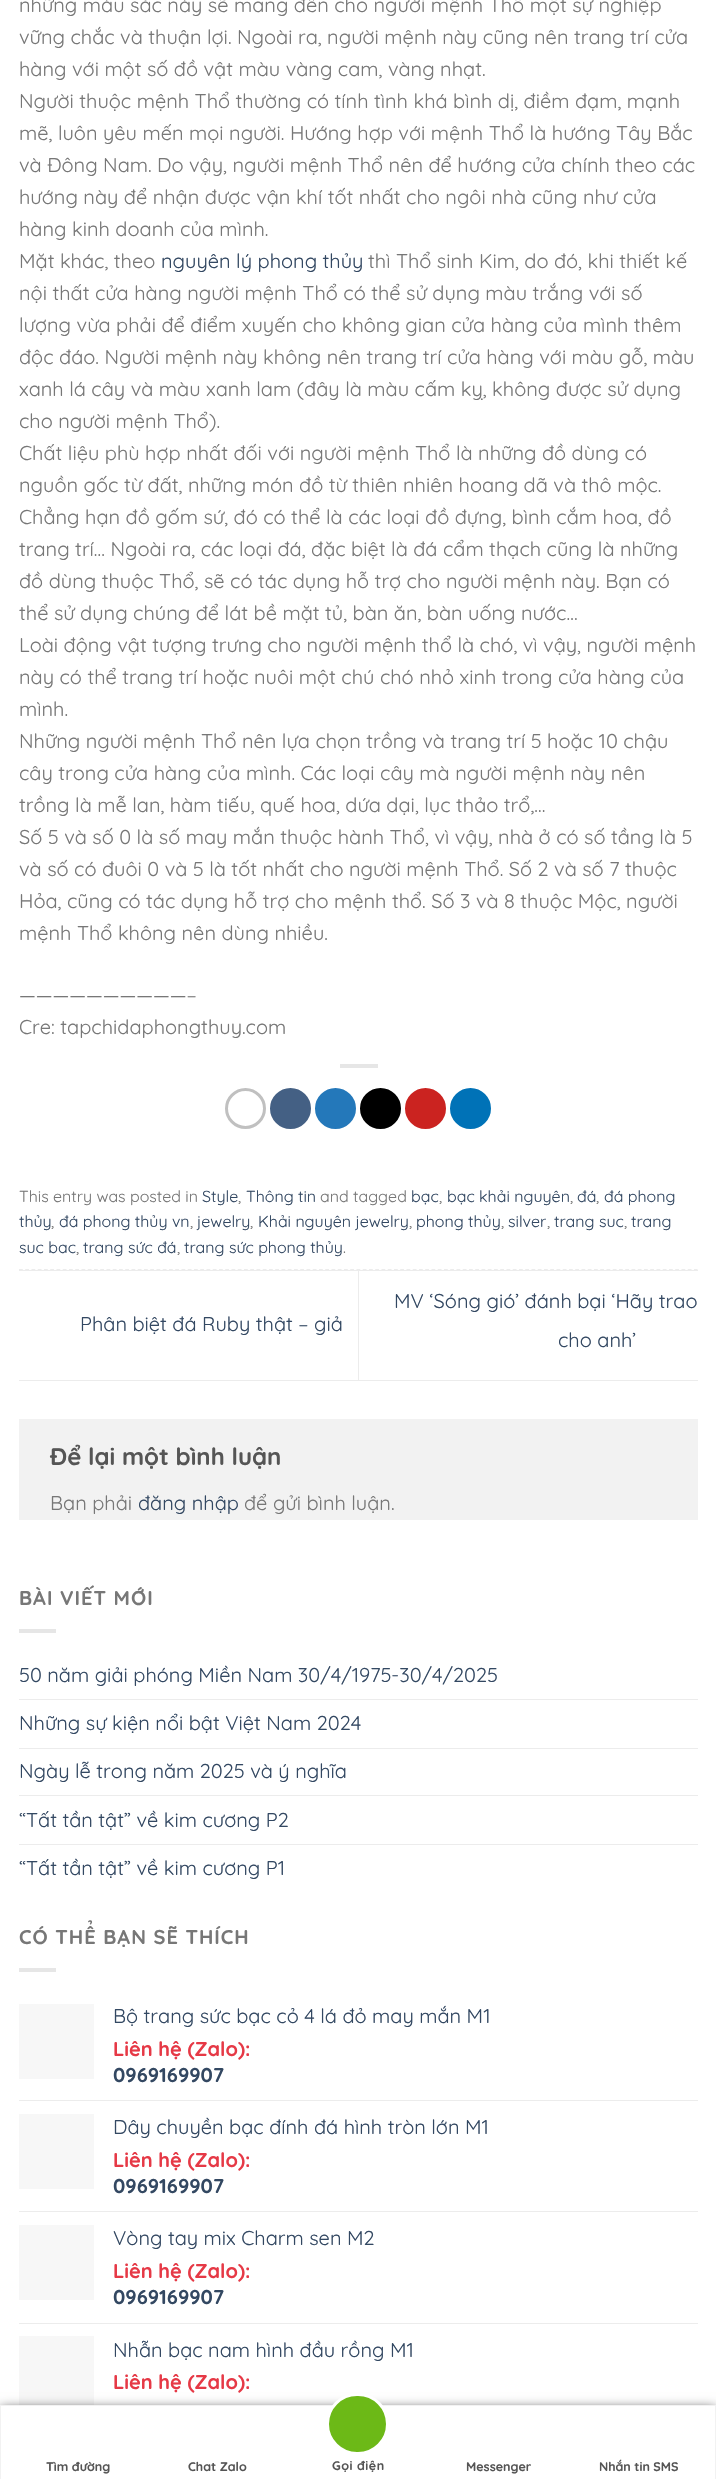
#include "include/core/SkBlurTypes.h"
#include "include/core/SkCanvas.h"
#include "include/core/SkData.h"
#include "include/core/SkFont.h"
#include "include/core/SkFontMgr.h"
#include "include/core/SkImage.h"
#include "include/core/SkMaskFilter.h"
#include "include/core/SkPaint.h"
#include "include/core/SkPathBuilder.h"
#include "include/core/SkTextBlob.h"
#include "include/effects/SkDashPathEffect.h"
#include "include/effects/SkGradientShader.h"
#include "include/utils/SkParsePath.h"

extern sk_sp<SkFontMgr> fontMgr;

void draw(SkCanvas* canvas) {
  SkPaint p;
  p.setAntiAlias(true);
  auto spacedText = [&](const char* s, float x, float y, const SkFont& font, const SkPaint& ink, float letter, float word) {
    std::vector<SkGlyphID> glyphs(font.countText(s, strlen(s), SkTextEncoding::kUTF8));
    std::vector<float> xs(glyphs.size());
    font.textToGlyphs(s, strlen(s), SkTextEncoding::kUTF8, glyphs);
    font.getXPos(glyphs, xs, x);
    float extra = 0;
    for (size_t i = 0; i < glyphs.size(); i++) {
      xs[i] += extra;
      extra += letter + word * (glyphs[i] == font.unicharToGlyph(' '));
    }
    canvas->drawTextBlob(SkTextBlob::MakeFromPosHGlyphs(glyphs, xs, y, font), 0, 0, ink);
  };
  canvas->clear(SK_ColorWHITE);
  p.setColor(SkColorSetRGB(230, 230, 230));
  canvas->drawRect(SkRect::MakeLTRB(340, 1064, 378, 1068), p);
  p.setStyle(SkPaint::kStroke_Style);
  p.setStrokeWidth(3);
  p.setColor(SkColorSetRGB(192, 192, 192));
  canvas->drawCircle(245.5f, 1108.5f, 19, p);
  p.setStyle(SkPaint::kFill_Style);
  p.setColor(SkColorSetRGB(68, 96, 132));
  canvas->drawCircle(290.5f, 1108.5f, 19, p);
  p.setStyle(SkPaint::kStroke_Style);
  canvas->drawCircle(290.5f, 1108.5f, 19, p);
  p.setStyle(SkPaint::kFill_Style);
  p.setColor(SkColorSetRGB(36, 120, 186));
  canvas->drawCircle(335.5f, 1108.5f, 19, p);
  p.setStyle(SkPaint::kStroke_Style);
  canvas->drawCircle(335.5f, 1108.5f, 19, p);
  p.setStyle(SkPaint::kFill_Style);
  p.setColor(SK_ColorBLACK);
  canvas->drawCircle(380.5f, 1108.5f, 19, p);
  p.setStyle(SkPaint::kStroke_Style);
  canvas->drawCircle(380.5f, 1108.5f, 19, p);
  p.setStyle(SkPaint::kFill_Style);
  p.setColor(SkColorSetRGB(203, 35, 32));
  canvas->drawCircle(425.5f, 1108.5f, 19, p);
  p.setStyle(SkPaint::kStroke_Style);
  canvas->drawCircle(425.5f, 1108.5f, 19, p);
  p.setStyle(SkPaint::kFill_Style);
  p.setColor(SkColorSetRGB(0, 114, 183));
  canvas->drawCircle(470.5f, 1108.5f, 19, p);
  p.setStyle(SkPaint::kStroke_Style);
  canvas->drawCircle(470.5f, 1108.5f, 19, p);
  p.setStrokeWidth(1.2f);
  p.setColor(SkColorSetRGB(236, 236, 236));
  p.setPathEffect(SkDashPathEffect::Make({{3.75f, 2.5f}}, 0));
  canvas->drawPath(SkPathBuilder().moveTo(19, 1269.5f).lineTo(697.5f, 1269.5f).detach(), p);
  p.setPathEffect(nullptr);
  p.setStyle(SkPaint::kFill_Style);
  canvas->drawRect(SkRect::MakeLTRB(19, 1270, 698, 1271), p);
  canvas->drawRect(SkRect::MakeLTRB(19, 1380, 698, 1381), p);
  canvas->drawRect(SkRect::MakeLTRB(358, 1271, 359, 1380), p);
  p.setColor(SkColorSetRGB(242, 242, 242));
  canvas->drawRect(SkRect::MakeLTRB(19, 1419, 698, 1520), p);
  p.setColor(SkColorSetRGB(230, 230, 230));
  canvas->drawRect(SkRect::MakeLTRB(19, 1629, 56, 1633), p);
  p.setColor(SkColorSetRGB(236, 236, 236));
  canvas->drawRect(SkRect::MakeLTRB(19, 1699, 698, 1700), p);
  canvas->drawRect(SkRect::MakeLTRB(19, 1748, 698, 1749), p);
  canvas->drawRect(SkRect::MakeLTRB(19, 1795, 698, 1796), p);
  canvas->drawRect(SkRect::MakeLTRB(19, 1844, 698, 1845), p);
  p.setColor(SkColorSetRGB(230, 230, 230));
  canvas->drawRect(SkRect::MakeLTRB(19, 1968, 56, 1972), p);
  p.setColor(SkColorSetRGB(247, 247, 247));
  canvas->drawRect(SkRect::MakeLTRB(19, 2004, 94, 2079), p);
  p.setColor(SkColorSetRGB(236, 236, 236));
  canvas->drawRect(SkRect::MakeLTRB(19, 2100, 698, 2101), p);
  p.setColor(SkColorSetRGB(247, 247, 247));
  canvas->drawRect(SkRect::MakeLTRB(19, 2114, 94, 2189), p);
  p.setColor(SkColorSetRGB(236, 236, 236));
  canvas->drawRect(SkRect::MakeLTRB(19, 2211, 698, 2212), p);
  p.setColor(SkColorSetRGB(247, 247, 247));
  canvas->drawRect(SkRect::MakeLTRB(19, 2225, 94, 2300), p);
  p.setColor(SkColorSetRGB(236, 236, 236));
  canvas->drawRect(SkRect::MakeLTRB(19, 2323, 698, 2324), p);
  p.setColor(SkColorSetRGB(247, 247, 247));
  canvas->drawRect(SkRect::MakeLTRB(19, 2336, 94, 2405), p);
  p.setColor(SK_ColorBLACK);
  p.setMaskFilter(SkMaskFilter::MakeBlur(kNormal_SkBlurStyle, 6));
  canvas->drawRect(SkRect::MakeLTRB(0, 2410, 716, 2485), p);
  p.setMaskFilter(nullptr);
  p.setColor(SK_ColorWHITE);
  canvas->drawRect(SkRect::MakeLTRB(0.5f, 2405.5f, 715.5f, 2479.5f), p);
  p.setStyle(SkPaint::kStroke_Style);
  p.setStrokeWidth(1);
  p.setColor(SkColorSetRGB(242, 242, 242));
  canvas->drawRect(SkRect::MakeLTRB(0.5f, 2405.5f, 715.5f, 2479.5f), p);
  p.setStyle(SkPaint::kFill_Style);
  p.setColor(SkColorSetRGB(108, 185, 23));
  canvas->drawRoundRect(SkRect::MakeLTRB(327.5f, 2394.5f, 387.5f, 2453.5f), 29.5f, 29.5f, p);
  p.setStyle(SkPaint::kStroke_Style);
  p.setStrokeWidth(3);
  p.setColor(SK_ColorWHITE);
  canvas->drawRoundRect(SkRect::MakeLTRB(327.5f, 2394.5f, 387.5f, 2453.5f), 29.5f, 29.5f, p);
  SkFont font1(fontMgr->matchFamilyStyle("Quicksand", SkFontStyle::Normal()), 20);
  font1.setSubpixel(true);
  p.setStyle(SkPaint::kFill_Style);
  p.setColor(SkColorSetRGB(119, 119, 119));
  canvas->drawString("những màu sắc này sẽ mang đến cho người mệnh Thổ một sự nghiệp", 19, 12, font1, p);
  canvas->drawString("vững chắc và thuận lợi. Ngoài ra, người mệnh này cũng nên trang trí cửa", 19, 44, font1, p);
  canvas->drawString("hàng với một số đồ vật màu vàng cam, vàng nhạt.", 19, 76, font1, p);
  canvas->drawString("Người thuộc mệnh Thổ thường có tính tình khá bình dị, điềm đạm, mạnh", 19, 108, font1, p);
  canvas->drawString("mẽ, luôn yêu mến mọi người. Hướng hợp với mệnh Thổ là hướng Tây Bắc", 19, 140, font1, p);
  canvas->drawString("và Đông Nam. Do vậy, người mệnh Thổ nên để hướng cửa chính theo các", 19, 172, font1, p);
  canvas->drawString("hướng này để nhận được vận khí tốt nhất cho ngôi nhà cũng như cửa", 19, 204, font1, p);
  canvas->drawString("hàng kinh doanh của mình.", 19, 236, font1, p);
  canvas->drawString("Mặt khác, theo", 19, 268, font1, p);
  p.setColor(SkColorSetRGB(51, 72, 98));
  canvas->drawString("nguyên lý phong thủy", 161, 268, font1, p);
  p.setColor(SkColorSetRGB(119, 119, 119));
  canvas->drawString("thì Thổ sinh Kim, do đó, khi thiết kế", 368, 268, font1, p);
  canvas->drawString("nội thất cửa hàng người mệnh Thổ có thể sử dụng màu trắng với số", 19, 300, font1, p);
  canvas->drawString("lượng vừa phải để điểm xuyến cho không gian cửa hàng của mình thêm", 19, 332, font1, p);
  canvas->drawString("độc đáo. Người mệnh này không nên trang trí cửa hàng với màu gỗ, màu", 19, 364, font1, p);
  canvas->drawString("xanh lá cây và màu xanh lam (đây là màu cấm kỵ, không được sử dụng", 19, 396, font1, p);
  canvas->drawString("cho người mệnh Thổ).", 19, 428, font1, p);
  canvas->drawString("Chất liệu phù hợp nhất đối với người mệnh Thổ là những đồ dùng có", 19, 460, font1, p);
  canvas->drawString("nguồn gốc từ đất, những món đồ từ thiên nhiên hoang dã và thô mộc.", 19, 492, font1, p);
  canvas->drawString("Chẳng hạn đồ gốm sứ, đó có thể là các loại đồ đựng, bình cắm hoa, đồ", 19, 524, font1, p);
  canvas->drawString("trang trí… Ngoài ra, các loại đá, đặc biệt là đá cẩm thạch cũng là những", 19, 556, font1, p);
  canvas->drawString("đồ dùng thuộc Thổ, sẽ có tác dụng hỗ trợ cho người mệnh này. Bạn có", 19, 588, font1, p);
  canvas->drawString("thể sử dụng chúng để lát bề mặt tủ, bàn ăn, bàn uống nước…", 19, 620, font1, p);
  canvas->drawString("Loài động vật tượng trưng cho người mệnh thổ là chó, vì vậy, người mệnh", 19, 652, font1, p);
  canvas->drawString("này có thể trang trí hoặc nuôi một chú chó nhỏ xinh trong cửa hàng của", 19, 684, font1, p);
  canvas->drawString("mình.", 19, 716, font1, p);
  canvas->drawString("Những người mệnh Thổ nên lựa chọn trồng và trang trí 5 hoặc 10 chậu", 19, 748, font1, p);
  canvas->drawString("cây trong cửa hàng của mình. Các loại cây mà người mệnh này nên", 19, 780, font1, p);
  canvas->drawString("trồng là mễ lan, hàm tiếu, quế hoa, dứa dại, lục thảo trổ,…", 19, 812, font1, p);
  canvas->drawString("Số 5 và số 0 là số may mắn thuộc hành Thổ, vì vậy, nhà ở có số tầng là 5", 19, 844, font1, p);
  canvas->drawString("và số có đuôi 0 và 5 là tốt nhất cho người mệnh Thổ. Số 2 và số 7 thuộc", 19, 876, font1, p);
  canvas->drawString("Hỏa, cũng có tác dụng hỗ trợ cho mệnh thổ. Số 3 và 8 thuộc Mộc, người", 19, 908, font1, p);
  canvas->drawString("mệnh Thổ không nên dùng nhiều.", 19, 940, font1, p);
  canvas->drawString("——————————–", 19, 1002, font1, p);
  canvas->drawString("Cre: tapchidaphongthuy.com", 19, 1034, font1, p);
  SkFont font2(fontMgr->matchFamilyStyle("Quicksand", SkFontStyle::Normal()), 16);
  font2.setSubpixel(true);
  canvas->drawString("This entry was posted in", 19, 1202, font2, p);
  p.setColor(SkColorSetRGB(51, 72, 98));
  canvas->drawString("Style", 202, 1202, font2, p);
  p.setColor(SkColorSetRGB(119, 119, 119));
  canvas->drawString(",", 238, 1202, font2, p);
  p.setColor(SkColorSetRGB(51, 72, 98));
  canvas->drawString("Thông tin", 246, 1202, font2, p);
  p.setColor(SkColorSetRGB(119, 119, 119));
  canvas->drawString("and tagged", 320, 1202, font2, p);
  p.setColor(SkColorSetRGB(51, 72, 98));
  canvas->drawString("bạc", 411, 1202, font2, p);
  p.setColor(SkColorSetRGB(119, 119, 119));
  canvas->drawString(",", 439, 1202, font2, p);
  p.setColor(SkColorSetRGB(51, 72, 98));
  canvas->drawString("bạc khải nguyên", 447, 1202, font2, p);
  p.setColor(SkColorSetRGB(119, 119, 119));
  canvas->drawString(",", 570, 1202, font2, p);
  p.setColor(SkColorSetRGB(51, 72, 98));
  canvas->drawString("đá", 577, 1202, font2, p);
  p.setColor(SkColorSetRGB(119, 119, 119));
  canvas->drawString(",", 596, 1202, font2, p);
  p.setColor(SkColorSetRGB(51, 72, 98));
  canvas->drawString("đá phong", 604, 1202, font2, p);
  canvas->drawString("thủy", 19, 1227, font2, p);
  p.setColor(SkColorSetRGB(119, 119, 119));
  canvas->drawString(",", 51, 1227, font2, p);
  p.setColor(SkColorSetRGB(51, 72, 98));
  canvas->drawString("đá phong thủy vn", 59, 1227, font2, p);
  p.setColor(SkColorSetRGB(119, 119, 119));
  canvas->drawString(",", 190, 1227, font2, p);
  p.setColor(SkColorSetRGB(51, 72, 98));
  canvas->drawString("jewelry", 197, 1227, font2, p);
  p.setColor(SkColorSetRGB(119, 119, 119));
  canvas->drawString(",", 250, 1227, font2, p);
  p.setColor(SkColorSetRGB(51, 72, 98));
  canvas->drawString("Khải nguyên jewelry", 258, 1227, font2, p);
  p.setColor(SkColorSetRGB(119, 119, 119));
  canvas->drawString(",", 409, 1227, font2, p);
  p.setColor(SkColorSetRGB(51, 72, 98));
  canvas->drawString("phong thủy", 416, 1227, font2, p);
  p.setColor(SkColorSetRGB(119, 119, 119));
  canvas->drawString(",", 501, 1227, font2, p);
  p.setColor(SkColorSetRGB(51, 72, 98));
  canvas->drawString("silver", 508, 1227, font2, p);
  p.setColor(SkColorSetRGB(119, 119, 119));
  canvas->drawString(",", 547, 1227, font2, p);
  p.setColor(SkColorSetRGB(51, 72, 98));
  canvas->drawString("trang suc", 554, 1227, font2, p);
  p.setColor(SkColorSetRGB(119, 119, 119));
  canvas->drawString(",", 624, 1227, font2, p);
  p.setColor(SkColorSetRGB(51, 72, 98));
  canvas->drawString("trang", 631, 1227, font2, p);
  canvas->drawString("suc bac", 19, 1253, font2, p);
  p.setColor(SkColorSetRGB(119, 119, 119));
  canvas->drawString(",", 76, 1253, font2, p);
  p.setColor(SkColorSetRGB(51, 72, 98));
  canvas->drawString("trang sức đá", 83, 1253, font2, p);
  p.setColor(SkColorSetRGB(119, 119, 119));
  canvas->drawString(",", 177, 1253, font2, p);
  p.setColor(SkColorSetRGB(51, 72, 98));
  canvas->drawString("trang sức phong thủy", 184, 1253, font2, p);
  p.setColor(SkColorSetRGB(119, 119, 119));
  canvas->drawString(".", 343, 1253, font2, p);
  p.setColor(SkColorSetRGB(51, 72, 98));
  canvas->drawString("Phân biệt đá Ruby thật – giả", 80, 1331, font1, p);
  canvas->drawString("MV ‘Sóng gió’ đánh bại ‘Hãy trao", 394, 1308, font1, p);
  canvas->drawString("cho anh’", 558, 1347, font1, p);
  SkFont font3(fontMgr->matchFamilyStyle("Quicksand", SkFontStyle::Bold()), 24);
  font3.setSubpixel(true);
  p.setColor(SkColorSetRGB(85, 85, 85));
  canvas->drawString("Để lại một bình luận", 50, 1465, font3, p);
  p.setColor(SkColorSetRGB(119, 119, 119));
  canvas->drawString("Bạn phải", 50, 1510, font1, p);
  p.setColor(SkColorSetRGB(51, 72, 98));
  canvas->drawString("đăng nhập", 138, 1510, font1, p);
  p.setColor(SkColorSetRGB(119, 119, 119));
  canvas->drawString("để gửi bình luận.", 244, 1510, font1, p);
  SkFont font4(fontMgr->matchFamilyStyle("Quicksand", SkFontStyle::Bold()), 20);
  font4.setSubpixel(true);
  spacedText("BÀI VIẾT MỚI", 19, 1605, font4, p, 1, 0);
  p.setColor(SkColorSetRGB(51, 72, 98));
  canvas->drawString("50 năm giải phóng Miền Nam 30/4/1975-30/4/2025", 19, 1682, font1, p);
  canvas->drawString("Những sự kiện nổi bật Việt Nam 2024", 19, 1730, font1, p);
  canvas->drawString("Ngày lễ trong năm 2025 và ý nghĩa", 19, 1778, font1, p);
  canvas->drawString("“Tất tần tật” về kim cương P2", 19, 1827, font1, p);
  canvas->drawString("“Tất tần tật” về kim cương P1", 19, 1875, font1, p);
  p.setColor(SkColorSetRGB(119, 119, 119));
  spacedText("CÓ THỂ BẠN SẼ THÍCH", 19, 1944, font4, p, 1, 0);
  p.setColor(SkColorSetRGB(51, 72, 98));
  canvas->drawString("Bộ trang sức bạc cỏ 4 lá đỏ may mắn M1", 113, 2023, font1, p);
  p.setColor(SkColorSetRGB(230, 57, 70));
  canvas->drawString("Liên hệ (Zalo):", 113, 2056, font4, p);
  p.setColor(SkColorSetRGB(51, 72, 98));
  canvas->drawString("0969169907", 113, 2082, font4, p);
  canvas->drawString("Dây chuyền bạc đính đá hình tròn lớn M1", 113, 2134, font1, p);
  p.setColor(SkColorSetRGB(230, 57, 70));
  canvas->drawString("Liên hệ (Zalo):", 113, 2167, font4, p);
  p.setColor(SkColorSetRGB(51, 72, 98));
  canvas->drawString("0969169907", 113, 2193, font4, p);
  canvas->drawString("Vòng tay mix Charm sen M2", 113, 2245, font1, p);
  p.setColor(SkColorSetRGB(230, 57, 70));
  canvas->drawString("Liên hệ (Zalo):", 113, 2278, font4, p);
  p.setColor(SkColorSetRGB(51, 72, 98));
  canvas->drawString("0969169907", 113, 2304, font4, p);
  canvas->drawString("Nhẫn bạc nam hình đầu rồng M1", 113, 2357, font1, p);
  p.setColor(SkColorSetRGB(230, 57, 70));
  canvas->drawString("Liên hệ (Zalo):", 113, 2389, font4, p);
  SkFont font5(fontMgr->matchFamilyStyle("Quicksand", SkFontStyle::Bold()), 12.5f);
  font5.setSubpixel(true);
  p.setColor(SkColorSetRGB(85, 85, 85));
  canvas->drawString("Tìm đường", 46, 2471, font5, p);
  canvas->drawString("Chat Zalo", 188, 2471, font5, p);
  spacedText("Gọi điện", 332, 2470, font5, p, 0.5f, 0);
  canvas->drawString("Messenger", 466, 2471, font5, p);
  canvas->drawString("Nhắn tin SMS", 599, 2471, font5, p);
}
